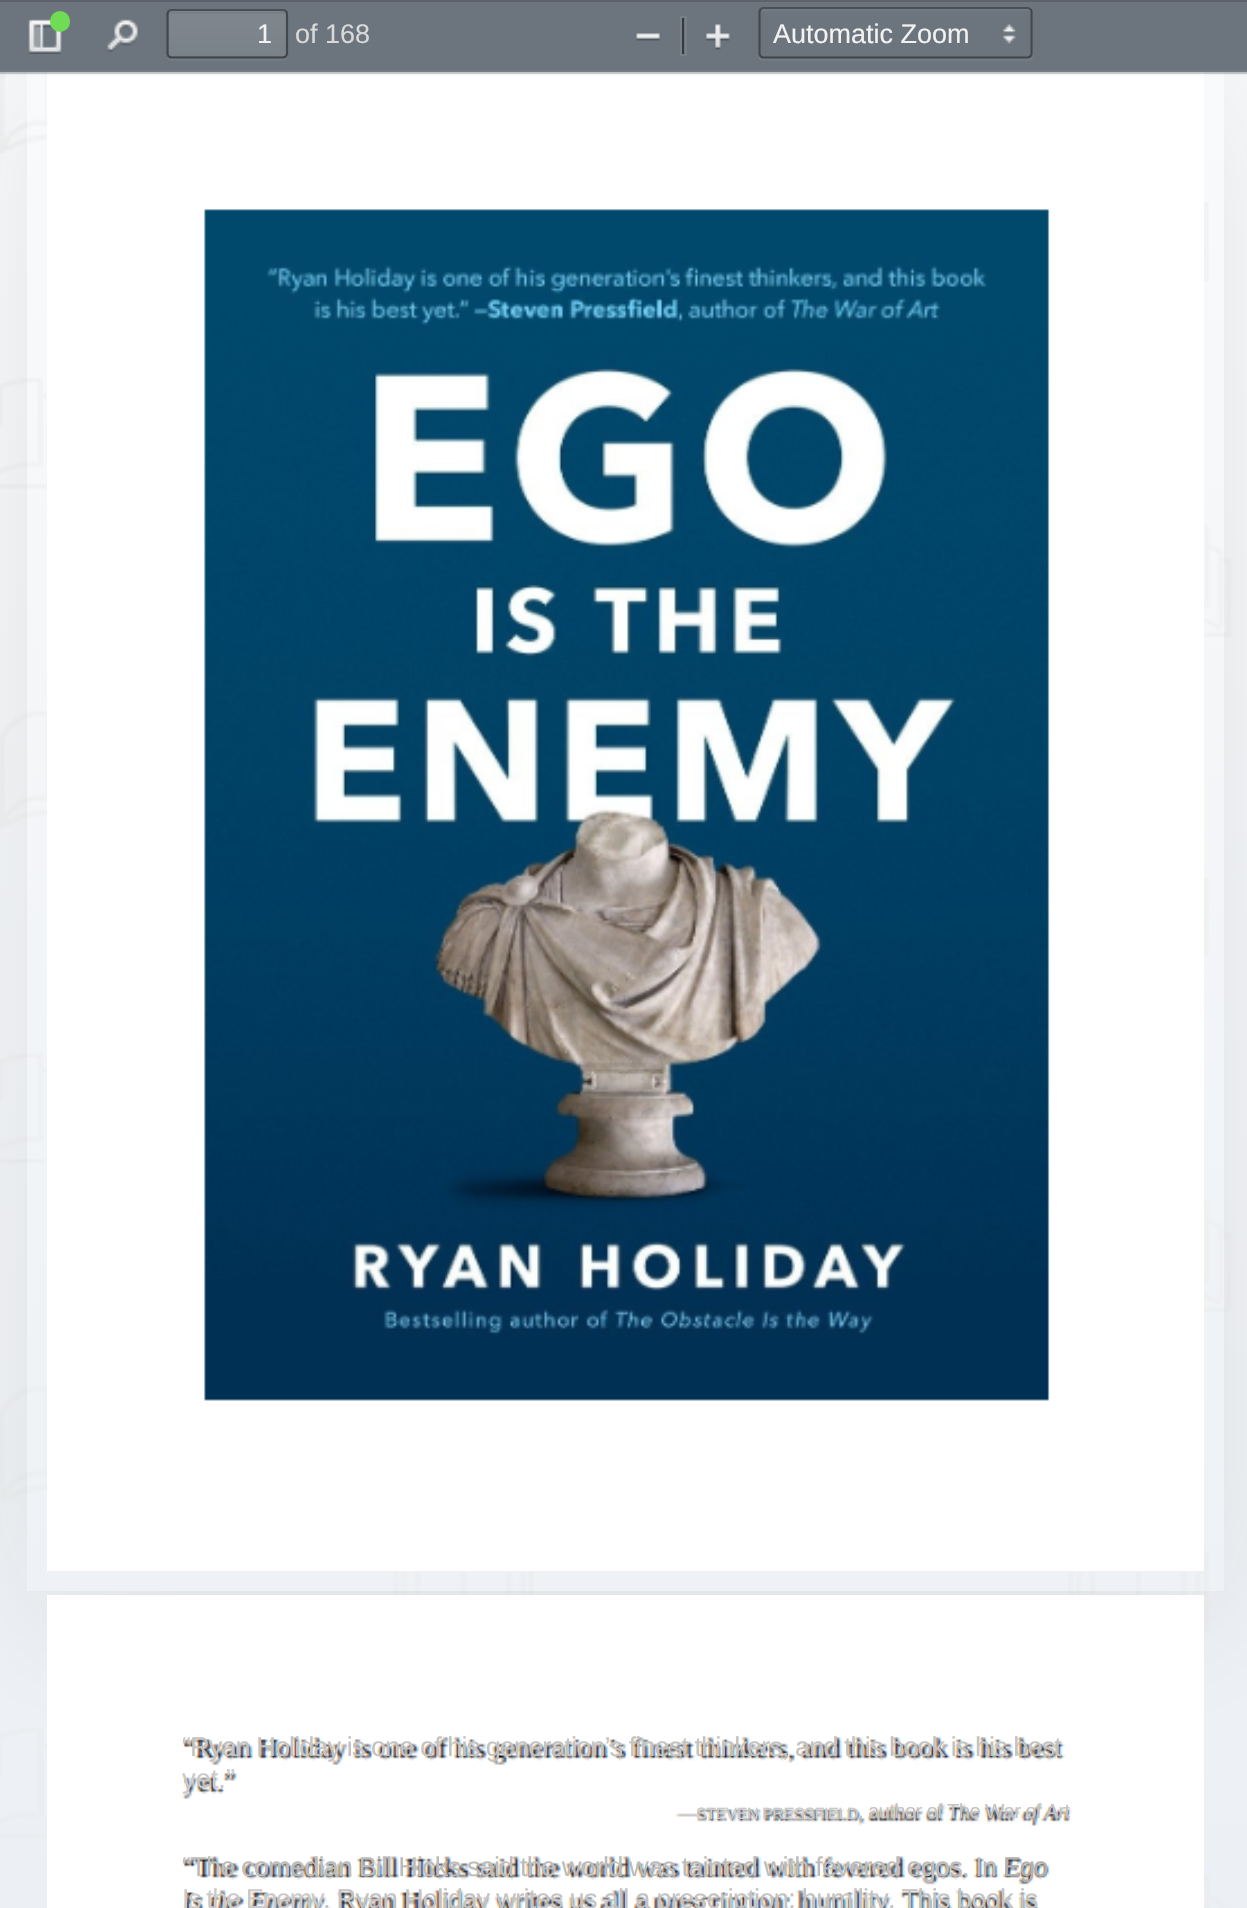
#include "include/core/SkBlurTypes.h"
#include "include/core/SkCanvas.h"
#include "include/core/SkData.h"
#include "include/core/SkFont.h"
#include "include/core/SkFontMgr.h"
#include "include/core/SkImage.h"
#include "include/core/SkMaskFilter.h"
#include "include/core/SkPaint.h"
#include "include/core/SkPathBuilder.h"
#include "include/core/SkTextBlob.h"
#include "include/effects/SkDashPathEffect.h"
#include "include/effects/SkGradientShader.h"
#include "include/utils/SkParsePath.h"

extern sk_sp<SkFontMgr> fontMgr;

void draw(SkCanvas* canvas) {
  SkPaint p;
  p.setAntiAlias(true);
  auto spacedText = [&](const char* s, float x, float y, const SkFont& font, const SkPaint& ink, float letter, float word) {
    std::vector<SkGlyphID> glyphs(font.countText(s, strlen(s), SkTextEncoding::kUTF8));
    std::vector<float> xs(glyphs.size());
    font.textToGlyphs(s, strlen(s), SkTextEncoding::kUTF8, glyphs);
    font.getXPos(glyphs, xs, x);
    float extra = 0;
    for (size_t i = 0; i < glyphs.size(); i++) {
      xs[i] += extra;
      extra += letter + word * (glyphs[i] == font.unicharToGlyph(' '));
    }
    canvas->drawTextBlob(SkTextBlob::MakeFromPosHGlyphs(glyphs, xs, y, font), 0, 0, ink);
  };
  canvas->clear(SK_ColorWHITE);
  canvas->drawImageRect(SkImages::DeferredFromEncodedData(SkData::MakeFromFileName("images/1.png")), SkRect::MakeLTRB(0, 72, 1247, 1908), SkSamplingOptions());
  canvas->save();
  canvas->clipPath(SkPathBuilder(SkPathFillType::kEvenOdd).moveTo(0, 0).lineTo(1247, 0).lineTo(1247, 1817).lineTo(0, 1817).close().moveTo(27, 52).lineTo(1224, 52).lineTo(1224, 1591).lineTo(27, 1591).close().detach(), true);
  p.setColor(SkColorSetARGB(23, 29, 29, 31));
  p.setMaskFilter(SkMaskFilter::MakeBlur(kNormal_SkBlurStyle, 67.5f));
  canvas->drawRect(SkRect::MakeLTRB(27, 74, 1224, 1613), p);
  p.setMaskFilter(nullptr);
  canvas->restore();
  p.setColor(SK_ColorWHITE);
  canvas->drawRect(SkRect::MakeLTRB(47, 72, 1204, 1571), p);
  p.setColor(SkColorSetARGB(26, 0, 0, 0));
  p.setMaskFilter(SkMaskFilter::MakeBlur(kNormal_SkBlurStyle, 1));
  canvas->drawRect(SkRect::MakeLTRB(0, 2, 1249, 74), p);
  p.setMaskFilter(nullptr);
  p.setColor(SkColorSetARGB(38, 0, 0, 0));
  canvas->drawPath(SkPathBuilder().moveTo(0, 72).lineTo(0, 74).lineTo(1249, 74).lineTo(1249, 2).lineTo(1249, 72).close().detach(), p);
  p.setColor(SkColorSetRGB(108, 117, 125));
  canvas->drawRect(SkRect::MakeLTRB(0, 2, 1247, 70), p);
  p.setColor(SkColorSetRGB(115, 124, 132));
  canvas->drawRect(SkRect::MakeLTRB(0, 70, 1247, 72), p);
  p.setColor(SkColorSetRGB(92, 99, 106));
  canvas->drawRect(SkRect::MakeLTRB(0, 0, 1247, 2), p);
  canvas->drawImageRect(SkImages::DeferredFromEncodedData(SkData::MakeFromFileName("images/2.png")), SkRect::MakeLTRB(28, 19, 62, 54), SkSamplingOptions());
  p.setColor(SkColorSetRGB(112, 219, 85));
  canvas->drawRoundRect(SkRect::MakeLTRB(50, 11, 70, 32), 10, 10, p);
  canvas->drawImageRect(SkImages::DeferredFromEncodedData(SkData::MakeFromFileName("images/3.png")), SkRect::MakeLTRB(107, 19, 138, 53), SkSamplingOptions());
  p.setColor(SkColorSetRGB(115, 124, 132));
  canvas->drawPath(SkPathBuilder().moveTo(167, 56).cubicTo(167, 59, 169, 61, 172, 61).lineTo(283, 61).cubicTo(286, 61, 288, 59, 288, 56).lineTo(288, 54).cubicTo(288, 56, 286, 58, 284, 58).lineTo(171, 58).cubicTo(169, 58, 168, 58, 167, 56).close().detach(), p);
  {
    const SkColor colors[] = {SkColorSetRGB(128, 135, 143), SkColorSetRGB(121, 129, 137)};
    const float stops[] = {0, 1};
    const SkPoint ends[] = {{227, 11}, {227, 56}};
    p.setShader(SkGradientShader::MakeLinear(ends, colors, stops, 2, SkTileMode::kClamp));
    p.setAlpha(255);
  }
  canvas->drawRoundRect(SkRect::MakeLTRB(169, 11, 286, 56), 2, 2, p);
  p.setShader(nullptr);
  p.setColor(SkColorSetRGB(122, 128, 136));
  canvas->drawPath(SkPathBuilder().moveTo(171, 14).lineTo(284, 14).cubicTo(285, 14, 286, 15, 286, 16).lineTo(286, 13).cubicTo(286, 12, 285, 11, 284, 11).lineTo(171, 11).cubicTo(170, 11, 169, 12, 169, 13).lineTo(169, 16).cubicTo(169, 15, 170, 14, 171, 14).close().detach(), p);
  p.setStyle(SkPaint::kStroke_Style);
  p.setStrokeWidth(2.2f);
  p.setColor(SkColorSetARGB(82, 0, 0, 0));
  canvas->drawPath(SkPathBuilder().moveTo(168.5f, 11).lineTo(171, 10).lineTo(283.5f, 10).lineTo(286, 11).detach(), p);
  p.setColor(SkColorSetARGB(97, 0, 0, 0));
  canvas->drawPath(SkPathBuilder().moveTo(286, 11).lineTo(287, 13.5f).lineTo(287, 54).lineTo(286, 56.5f).detach(), p);
  p.setColor(SkColorSetARGB(107, 0, 0, 0));
  canvas->drawPath(SkPathBuilder().moveTo(286, 56.5f).lineTo(283.5f, 57.5f).lineTo(171, 57.5f).lineTo(168.5f, 56.5f).detach(), p);
  p.setColor(SkColorSetARGB(97, 0, 0, 0));
  canvas->drawPath(SkPathBuilder().moveTo(168.5f, 56.5f).lineTo(167.5f, 54).lineTo(167.5f, 13.5f).lineTo(168.5f, 11).detach(), p);
  canvas->drawImageRect(SkImages::DeferredFromEncodedData(SkData::MakeFromFileName("images/4.png")), SkRect::MakeLTRB(636, 33, 660, 41), SkSamplingOptions());
  p.setStrokeWidth(2);
  p.setColor(SkColorSetRGB(120, 128, 135));
  canvas->drawRect(SkRect::MakeLTRB(681, 17, 686, 55), p);
  p.setStyle(SkPaint::kFill_Style);
  p.setColor(SkColorSetRGB(54, 59, 63));
  canvas->drawRect(SkRect::MakeLTRB(682, 18, 684, 54), p);
  canvas->drawImageRect(SkImages::DeferredFromEncodedData(SkData::MakeFromFileName("images/5.png")), SkRect::MakeLTRB(706, 24, 730, 50), SkSamplingOptions());
  p.setColor(SkColorSetRGB(115, 124, 132));
  canvas->drawPath(SkPathBuilder().moveTo(758, 12).lineTo(758, 56).cubicTo(758, 59, 760, 61, 763, 61).lineTo(1028, 61).cubicTo(1031, 61, 1033, 59, 1033, 56).lineTo(1033, 12).lineTo(1033, 54).cubicTo(1033, 56, 1031, 58, 1028, 58).lineTo(763, 58).cubicTo(760, 58, 758, 56, 758, 54).close().detach(), p);
  canvas->drawImageRect(SkImages::DeferredFromEncodedData(SkData::MakeFromFileName("images/6.png")), SkRect::MakeLTRB(1003, 24, 1016, 44), SkSamplingOptions());
  canvas->drawPath(SkPathBuilder().moveTo(763, 11).lineTo(1028, 11).cubicTo(1029, 11, 1030, 12, 1030, 14).lineTo(1030, 56).cubicTo(1031, 55, 1031, 55, 1031, 54).lineTo(1031, 11).cubicTo(1031, 10, 1030, 9, 1029, 9).lineTo(763, 9).cubicTo(762, 9, 761, 10, 761, 11).lineTo(761, 12).close().detach(), p);
  p.setStyle(SkPaint::kStroke_Style);
  p.setStrokeWidth(2.2f);
  p.setColor(SkColorSetARGB(82, 0, 0, 0));
  canvas->drawPath(SkPathBuilder().moveTo(760.5f, 9).lineTo(763, 8).lineTo(1028, 8).lineTo(1030.5f, 9).detach(), p);
  p.setColor(SkColorSetARGB(97, 0, 0, 0));
  canvas->drawPath(SkPathBuilder().moveTo(1030.5f, 9).lineTo(1031.5f, 11).lineTo(1031.5f, 54).lineTo(1030.5f, 56.5f).detach(), p);
  p.setColor(SkColorSetARGB(107, 0, 0, 0));
  canvas->drawPath(SkPathBuilder().moveTo(1030.5f, 56.5f).lineTo(1028, 57.5f).lineTo(763, 57.5f).lineTo(760.5f, 56.5f).detach(), p);
  p.setColor(SkColorSetARGB(97, 0, 0, 0));
  canvas->drawPath(SkPathBuilder().moveTo(760.5f, 56.5f).lineTo(759.5f, 54).lineTo(759.5f, 11.5f).lineTo(760.5f, 9).detach(), p);
  canvas->drawImageRect(SkImages::DeferredFromEncodedData(SkData::MakeFromFileName("images/7.png")), SkRect::MakeLTRB(204, 209, 1050, 1401), SkSamplingOptions());
  p.setStyle(SkPaint::kFill_Style);
  p.setColor(SK_ColorWHITE);
  canvas->drawRect(SkRect::MakeLTRB(47, 1595, 1204, 1908), p);
  canvas->drawImageRect(SkImages::DeferredFromEncodedData(SkData::MakeFromFileName("images/8.png")), SkRect::MakeLTRB(181, 1736, 1072, 1908), SkSamplingOptions());
  SkFont font1(fontMgr->matchFamilyStyle("Liberation Sans", SkFontStyle::Normal()), 27);
  font1.setSubpixel(true);
  p.setColor(SkColorSetRGB(242, 242, 242));
  canvas->drawString("1", 257, 43, font1, p);
  p.setColor(SkColorSetRGB(217, 217, 217));
  canvas->drawString("of 168", 295, 43, font1, p);
  p.setColor(SkColorSetRGB(242, 242, 242));
  canvas->drawString("Automatic Zoom", 773, 43, font1, p);
  SkFont font2(fontMgr->matchFamilyStyle("Liberation Sans", SkFontStyle::Normal()), 27.25f);
  font2.setSubpixel(true);
  p.setColor(SkColorSetRGB(197, 195, 193));
  spacedText("“Ryan Holiday is one of his generation’s finest thinkers, and this book is his best", 182, 1756, font2, p, -1, 0);
  p.setColor(SkColorSetRGB(203, 202, 203));
  canvas->drawString("yet.”", 182, 1788, font2, p);
  SkFont font3(fontMgr->matchFamilyStyle("Liberation Sans", SkFontStyle::Normal()), 16.4f);
  font3.setSubpixel(true);
  spacedText("STEVEN PRESSFIELD", 696, 1819, font3, p, -0.6f, 0);
  SkFont font4(fontMgr->matchFamilyStyle("Liberation Sans", SkFontStyle::Normal()), 20.5f);
  font4.setSubpixel(true);
  p.setColor(SkColorSetRGB(197, 195, 193));
  spacedText(", author of", 858, 1818, font4, p, -0.75f, 0);
  spacedText("The War of Art", 947, 1818, font4, p, -0.77f, 0);
  p.setColor(SkColorSetRGB(189, 188, 188));
  spacedText("“The comedian Bill Hicks said the world was tainted with fevered egos. In", 182, 1876, font2, p, -0.9f, 0);
  p.setColor(SkColorSetRGB(180, 174, 173));
  spacedText("Ego", 1003, 1876, font2, p, -1.5f, 0);
  p.setColor(SkColorSetRGB(203, 202, 203));
  spacedText("Is the Enemy", 182, 1908, font2, p, -1.5f, 0);
  p.setColor(SkColorSetRGB(197, 195, 193));
  spacedText(", Ryan Holiday writes us all a prescription: humility. This book is", 323, 1908, font2, p, -0.77f, 0);
}
